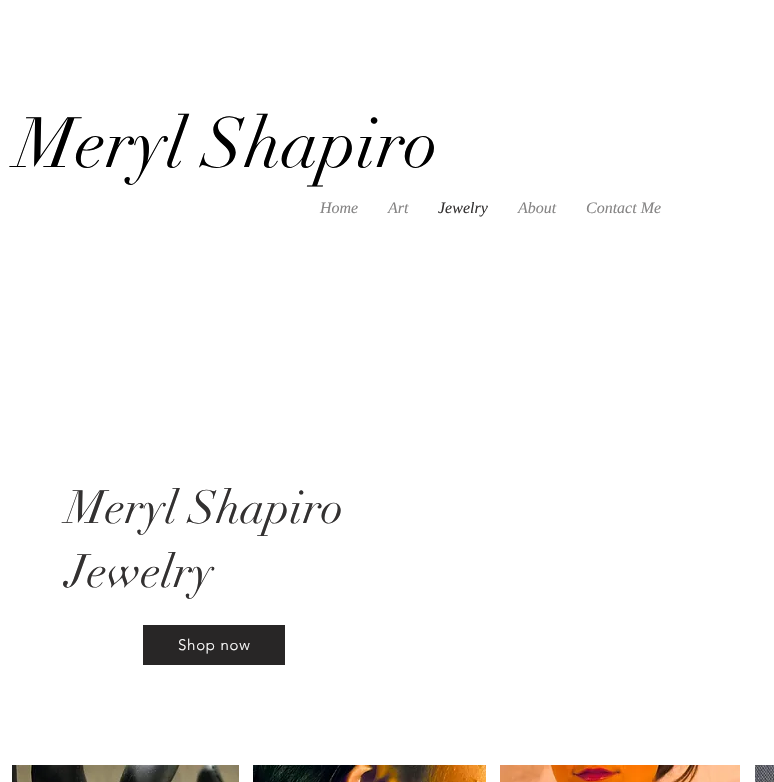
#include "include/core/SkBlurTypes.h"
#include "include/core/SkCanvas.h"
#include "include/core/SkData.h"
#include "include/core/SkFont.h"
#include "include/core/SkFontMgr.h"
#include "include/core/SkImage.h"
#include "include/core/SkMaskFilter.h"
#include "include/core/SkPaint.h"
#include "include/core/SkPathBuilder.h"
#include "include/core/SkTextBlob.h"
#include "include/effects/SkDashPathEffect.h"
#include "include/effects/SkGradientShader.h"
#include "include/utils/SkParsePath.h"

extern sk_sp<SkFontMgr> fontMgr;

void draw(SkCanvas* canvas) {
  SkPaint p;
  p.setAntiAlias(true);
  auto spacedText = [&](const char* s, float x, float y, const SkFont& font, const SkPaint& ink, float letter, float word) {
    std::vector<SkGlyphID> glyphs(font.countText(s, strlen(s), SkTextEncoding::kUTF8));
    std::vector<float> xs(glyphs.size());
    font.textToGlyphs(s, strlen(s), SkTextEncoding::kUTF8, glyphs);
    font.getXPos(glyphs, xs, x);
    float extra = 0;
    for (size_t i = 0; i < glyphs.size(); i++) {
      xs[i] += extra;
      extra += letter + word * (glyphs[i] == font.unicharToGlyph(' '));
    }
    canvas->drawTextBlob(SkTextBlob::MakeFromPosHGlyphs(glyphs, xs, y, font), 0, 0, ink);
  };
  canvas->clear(SK_ColorWHITE);
  p.setColor(SkColorSetRGB(40, 38, 38));
  canvas->drawRect(SkRect::MakeLTRB(143, 625, 285, 665), p);
  canvas->drawImageRect(SkImages::DeferredFromEncodedData(SkData::MakeFromFileName("images/1.png")), SkRect::MakeLTRB(12, 765, 239, 782), SkSamplingOptions());
  canvas->drawImageRect(SkImages::DeferredFromEncodedData(SkData::MakeFromFileName("images/2.png")), SkRect::MakeLTRB(253, 765, 486, 782), SkSamplingOptions());
  canvas->drawImageRect(SkImages::DeferredFromEncodedData(SkData::MakeFromFileName("images/3.png")), SkRect::MakeLTRB(500, 765, 740, 782), SkSamplingOptions());
  canvas->drawImageRect(SkImages::DeferredFromEncodedData(SkData::MakeFromFileName("images/4.png")), SkRect::MakeLTRB(755, 765, 774, 782), SkSamplingOptions());
  SkFont font1(fontMgr->matchFamilyStyle("didot", SkFontStyle::Normal()), 70);
  font1.setSubpixel(true);
  p.setColor(SK_ColorBLACK);
  canvas->drawString("Meryl Shapiro", 16, 167, font1, p);
  SkFont font2(fontMgr->matchFamilyStyle("Liberation Serif", SkFontStyle::Italic()), 16);
  font2.setSubpixel(true);
  p.setColor(SkColorSetRGB(133, 132, 132));
  canvas->drawString("Home", 320, 213, font2, p);
  canvas->drawString("Art", 388, 213, font2, p);
  p.setColor(SkColorSetRGB(51, 49, 49));
  canvas->drawString("Jewelry", 438, 213, font2, p);
  p.setColor(SkColorSetRGB(133, 132, 132));
  canvas->drawString("About", 518, 213, font2, p);
  canvas->drawString("Contact Me", 586, 213, font2, p);
  SkFont font3(fontMgr->matchFamilyStyle("didot", SkFontStyle::Normal()), 46);
  font3.setSubpixel(true);
  p.setColor(SkColorSetRGB(51, 49, 49));
  canvas->drawString("Meryl Shapiro", 66, 523, font3, p);
  canvas->drawString("Jewelry", 66, 587, font3, p);
  SkFont font4(fontMgr->matchFamilyStyle("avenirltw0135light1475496", SkFontStyle(300, SkFontStyle::kNormal_Width, SkFontStyle::kUpright_Slant)), 15);
  font4.setSubpixel(true);
  p.setColor(SK_ColorWHITE);
  spacedText("Shop now", 178, 650, font4, p, 0.75f, 0);
}
